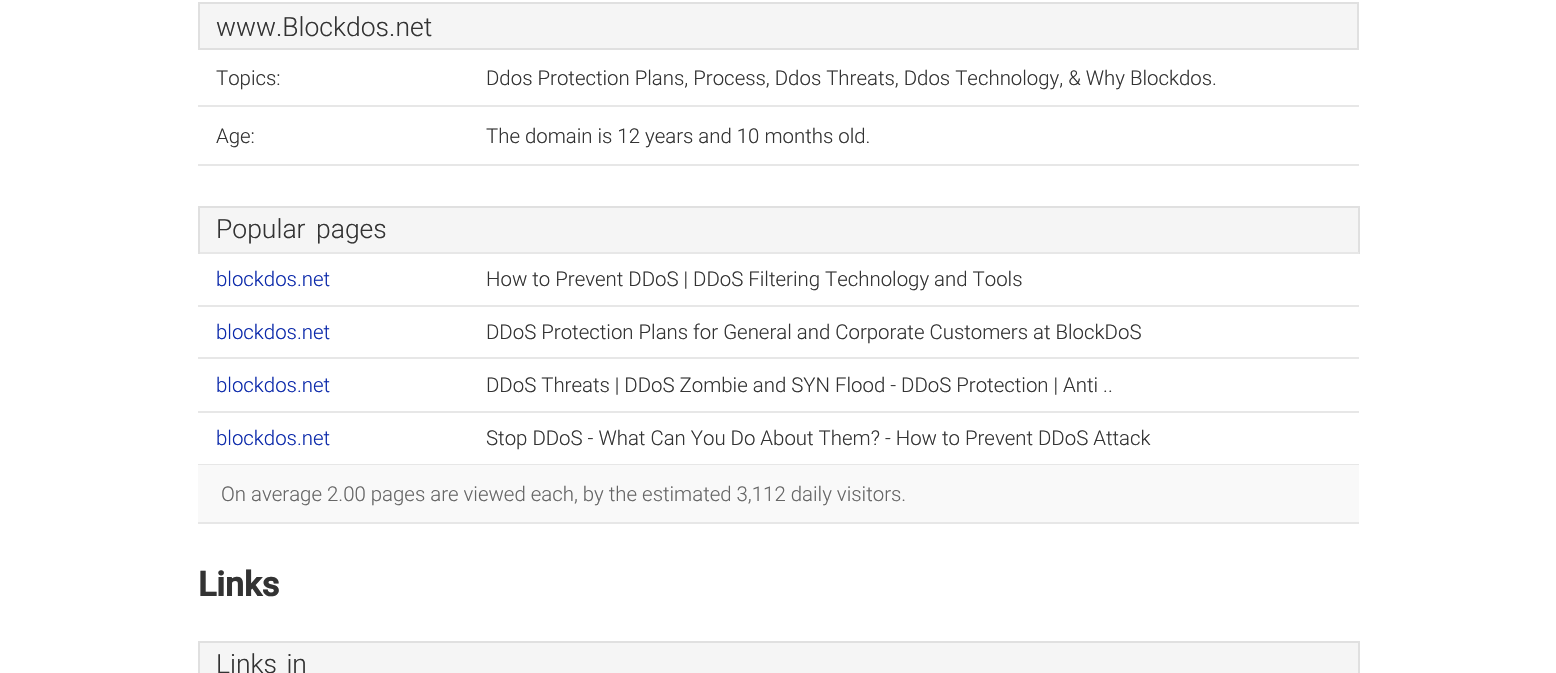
#include "include/core/SkBlurTypes.h"
#include "include/core/SkCanvas.h"
#include "include/core/SkData.h"
#include "include/core/SkFont.h"
#include "include/core/SkFontMgr.h"
#include "include/core/SkImage.h"
#include "include/core/SkMaskFilter.h"
#include "include/core/SkPaint.h"
#include "include/core/SkPathBuilder.h"
#include "include/core/SkTextBlob.h"
#include "include/effects/SkDashPathEffect.h"
#include "include/effects/SkGradientShader.h"
#include "include/utils/SkParsePath.h"

extern sk_sp<SkFontMgr> fontMgr;

void draw(SkCanvas* canvas) {
  SkPaint p;
  p.setAntiAlias(true);
  auto spacedText = [&](const char* s, float x, float y, const SkFont& font, const SkPaint& ink, float letter, float word) {
    std::vector<SkGlyphID> glyphs(font.countText(s, strlen(s), SkTextEncoding::kUTF8));
    std::vector<float> xs(glyphs.size());
    font.textToGlyphs(s, strlen(s), SkTextEncoding::kUTF8, glyphs);
    font.getXPos(glyphs, xs, x);
    float extra = 0;
    for (size_t i = 0; i < glyphs.size(); i++) {
      xs[i] += extra;
      extra += letter + word * (glyphs[i] == font.unicharToGlyph(' '));
    }
    canvas->drawTextBlob(SkTextBlob::MakeFromPosHGlyphs(glyphs, xs, y, font), 0, 0, ink);
  };
  canvas->clear(SK_ColorWHITE);
  p.setColor(SkColorSetRGB(245, 245, 245));
  canvas->drawRect(SkRect::MakeLTRB(199, 3, 1358, 49), p);
  p.setStyle(SkPaint::kStroke_Style);
  p.setStrokeWidth(2);
  p.setColor(SkColorSetRGB(224, 224, 224));
  canvas->drawRect(SkRect::MakeLTRB(199, 3, 1358, 49), p);
  p.setStyle(SkPaint::kFill_Style);
  p.setColor(SkColorSetRGB(231, 231, 231));
  canvas->drawRect(SkRect::MakeLTRB(198, 105, 1359, 107), p);
  canvas->drawRect(SkRect::MakeLTRB(198, 164, 1359, 166), p);
  p.setColor(SkColorSetRGB(245, 245, 245));
  canvas->drawRect(SkRect::MakeLTRB(200, 208, 1358, 252), p);
  p.setColor(SkColorSetRGB(224, 224, 224));
  canvas->drawRect(SkRect::MakeLTRB(198, 206, 1359, 208), p);
  canvas->drawRect(SkRect::MakeLTRB(1358, 206, 1360, 254), p);
  p.setColor(SkColorSetRGB(231, 231, 231));
  canvas->drawRect(SkRect::MakeLTRB(198, 252, 1359, 254), p);
  p.setColor(SkColorSetRGB(224, 224, 224));
  canvas->drawRect(SkRect::MakeLTRB(198, 206, 200, 254), p);
  p.setColor(SkColorSetRGB(231, 231, 231));
  canvas->drawRect(SkRect::MakeLTRB(198, 305, 1359, 307), p);
  canvas->drawRect(SkRect::MakeLTRB(198, 357, 1359, 359), p);
  canvas->drawRect(SkRect::MakeLTRB(198, 411, 1359, 413), p);
  canvas->drawRect(SkRect::MakeLTRB(198, 464, 1359, 465), p);
  p.setColor(SkColorSetRGB(249, 249, 249));
  canvas->drawRect(SkRect::MakeLTRB(198, 465, 1359, 522), p);
  p.setColor(SkColorSetRGB(231, 231, 231));
  canvas->drawRect(SkRect::MakeLTRB(198, 522, 1359, 524), p);
  p.setColor(SkColorSetRGB(245, 245, 245));
  canvas->drawRect(SkRect::MakeLTRB(200, 643, 1358, 673), p);
  p.setColor(SkColorSetRGB(224, 224, 224));
  canvas->drawRect(SkRect::MakeLTRB(198, 641, 1359, 643), p);
  canvas->drawRect(SkRect::MakeLTRB(1358, 641, 1360, 673), p);
  canvas->drawRect(SkRect::MakeLTRB(198, 641, 200, 673), p);
  SkFont font1(fontMgr->matchFamilyStyle("Roboto", SkFontStyle(300, SkFontStyle::kNormal_Width, SkFontStyle::kUpright_Slant)), 26.5f);
  font1.setSubpixel(true);
  p.setColor(SkColorSetRGB(51, 51, 51));
  canvas->drawString("www.Blockdos.net", 216, 36, font1, p);
  SkFont font2(fontMgr->matchFamilyStyle("Roboto", SkFontStyle(300, SkFontStyle::kNormal_Width, SkFontStyle::kUpright_Slant)), 20.4f);
  font2.setSubpixel(true);
  canvas->drawString("Topics:", 216, 85, font2, p);
  canvas->drawString("Ddos Protection Plans, Process, Ddos Threats, Ddos Technology, & Why Blockdos.", 486, 85, font2, p);
  canvas->drawString("Age:", 216, 143, font2, p);
  canvas->drawString("The domain is 12 years and 10 months old.", 486, 143, font2, p);
  spacedText("Popular pages", 216, 238, font1, p, 0, 4);
  p.setColor(SkColorSetRGB(12, 42, 171));
  canvas->drawString("blockdos.net", 216, 286, font2, p);
  p.setColor(SkColorSetRGB(51, 51, 51));
  canvas->drawString("How to Prevent DDoS | DDoS Filtering Technology and Tools", 486, 286, font2, p);
  p.setColor(SkColorSetRGB(12, 42, 171));
  canvas->drawString("blockdos.net", 216, 339, font2, p);
  p.setColor(SkColorSetRGB(51, 51, 51));
  canvas->drawString("DDoS Protection Plans for General and Corporate Customers at BlockDoS", 486, 339, font2, p);
  p.setColor(SkColorSetRGB(12, 42, 171));
  canvas->drawString("blockdos.net", 216, 392, font2, p);
  p.setColor(SkColorSetRGB(51, 51, 51));
  canvas->drawString("DDoS Threats | DDoS Zombie and SYN Flood - DDoS Protection | Anti ..", 486, 392, font2, p);
  p.setColor(SkColorSetRGB(12, 42, 171));
  canvas->drawString("blockdos.net", 216, 445, font2, p);
  p.setColor(SkColorSetRGB(51, 51, 51));
  canvas->drawString("Stop DDoS - What Can You Do About Them? - How to Prevent DDoS Attack", 486, 445, font2, p);
  p.setColor(SkColorSetRGB(102, 102, 102));
  canvas->drawString("On average 2.00 pages are viewed each, by the estimated 3,112 daily visitors.", 221, 501, font2, p);
  SkFont font3(fontMgr->matchFamilyStyle("Roboto", SkFontStyle::Bold()), 34);
  font3.setSubpixel(true);
  p.setColor(SkColorSetRGB(51, 51, 51));
  canvas->drawString("Links", 198, 596, font3, p);
  spacedText("Links in", 216, 673, font1, p, 0, 3);
}
